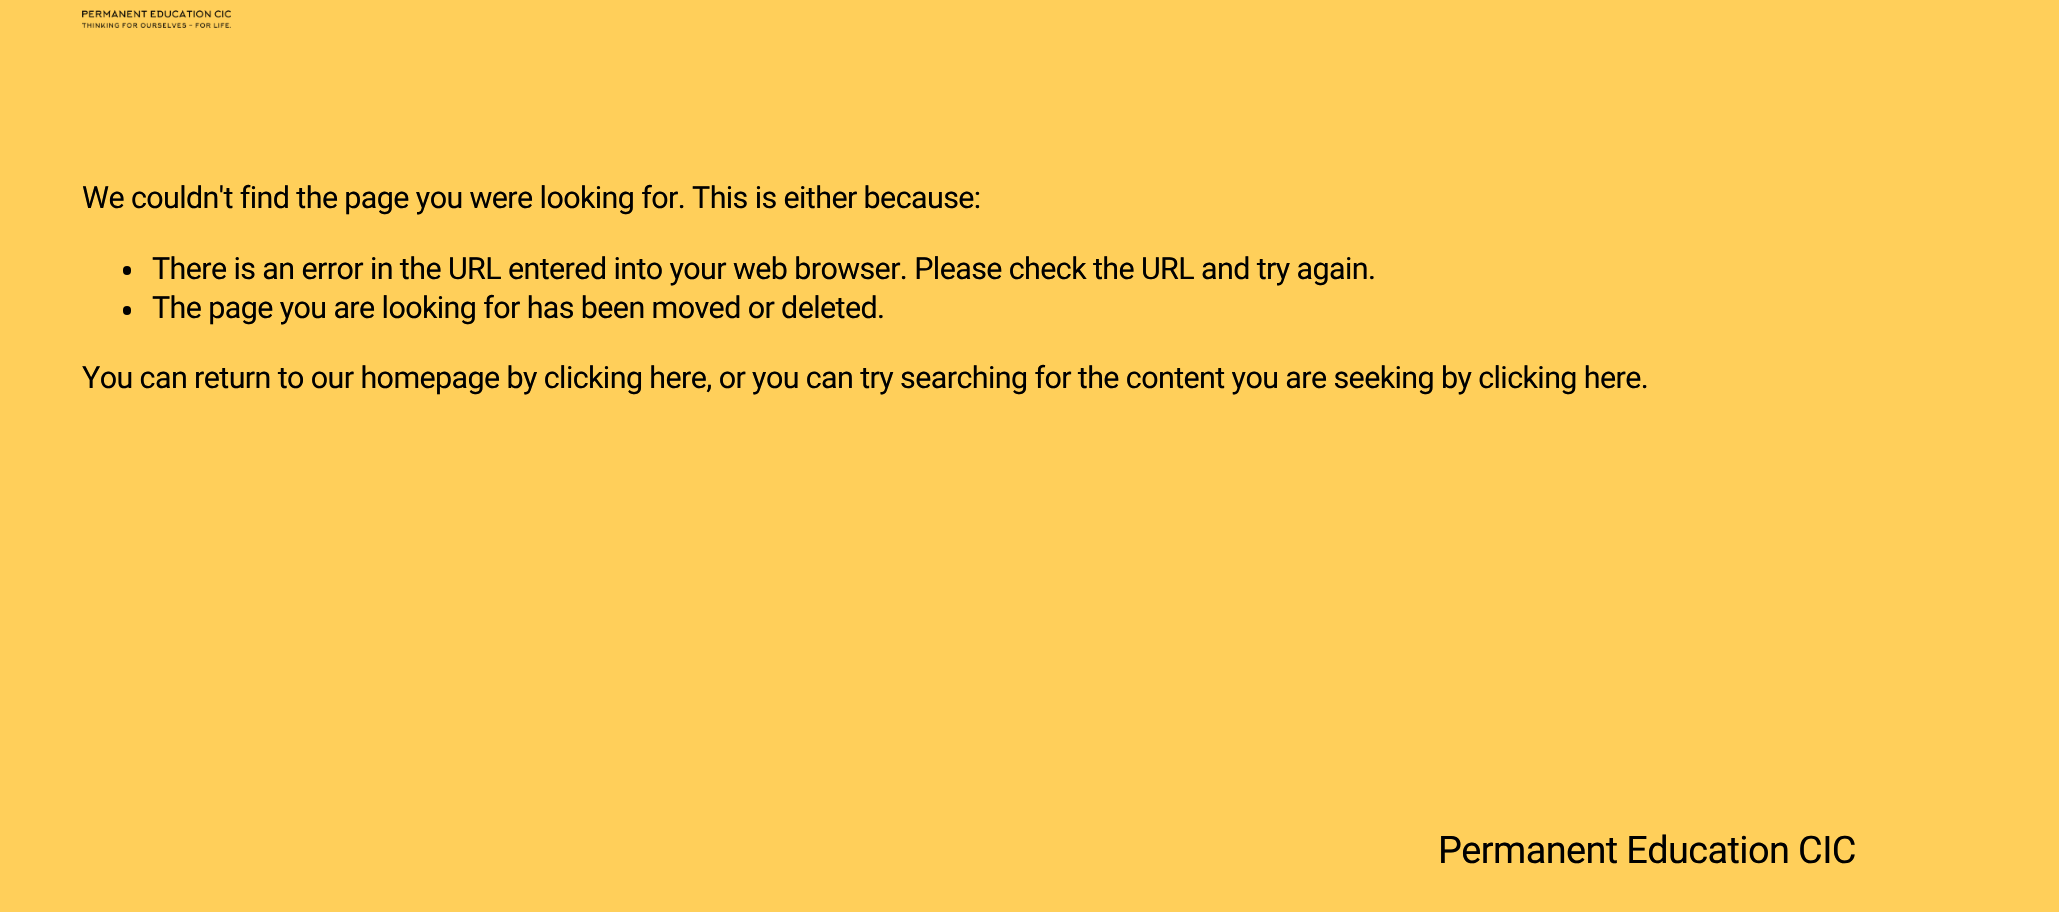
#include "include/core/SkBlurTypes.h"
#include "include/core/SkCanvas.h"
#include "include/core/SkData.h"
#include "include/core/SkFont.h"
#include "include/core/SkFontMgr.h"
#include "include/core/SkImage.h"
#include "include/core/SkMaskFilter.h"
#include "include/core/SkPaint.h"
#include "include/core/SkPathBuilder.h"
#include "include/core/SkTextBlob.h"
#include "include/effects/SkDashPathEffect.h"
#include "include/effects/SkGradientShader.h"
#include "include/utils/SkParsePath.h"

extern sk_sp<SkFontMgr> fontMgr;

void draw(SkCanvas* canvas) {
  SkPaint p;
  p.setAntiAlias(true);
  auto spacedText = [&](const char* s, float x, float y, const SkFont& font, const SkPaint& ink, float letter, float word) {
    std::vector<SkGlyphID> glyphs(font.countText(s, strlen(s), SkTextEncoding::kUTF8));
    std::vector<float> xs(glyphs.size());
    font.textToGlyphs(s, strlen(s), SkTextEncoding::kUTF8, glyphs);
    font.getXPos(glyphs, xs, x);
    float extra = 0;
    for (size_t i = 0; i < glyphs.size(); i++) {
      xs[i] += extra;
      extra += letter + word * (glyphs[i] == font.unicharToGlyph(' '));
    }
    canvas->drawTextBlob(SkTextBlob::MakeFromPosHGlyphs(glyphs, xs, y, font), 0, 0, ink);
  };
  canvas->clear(SkColorSetRGB(255, 207, 90));
  canvas->drawImageRect(SkImages::DeferredFromEncodedData(SkData::MakeFromFileName("images/1.png")), SkRect::MakeLTRB(82, 10, 231, 28), SkSamplingOptions());
  p.setColor(SK_ColorBLACK);
  canvas->drawRoundRect(SkRect::MakeLTRB(123, 266, 131, 275), 4, 4, p);
  canvas->drawRoundRect(SkRect::MakeLTRB(123, 306, 131, 315), 4, 4, p);
  SkFont font1(fontMgr->matchFamilyStyle("Roboto", SkFontStyle::Normal()), 30.47f);
  font1.setSubpixel(true);
  spacedText("We couldn't find the page you were looking for. This is either because:", 82, 208, font1, p, -0.61f, 0);
  spacedText("There is an error in the URL entered into your web browser. Please check the URL and try again.", 152, 279, font1, p, -0.61f, 0);
  spacedText("The page you are looking for has been moved or deleted.", 152, 318, font1, p, -0.61f, 0);
  spacedText("You can return to our homepage by clicking here, or you can try searching for the content you are seeking by clicking here.", 82, 388, font1, p, -0.61f, 0);
  SkFont font2(fontMgr->matchFamilyStyle("Roboto", SkFontStyle::Normal()), 37.9f);
  font2.setSubpixel(true);
  spacedText("Permanent Education CIC", 1438, 863, font2, p, -0.61f, 0);
}
